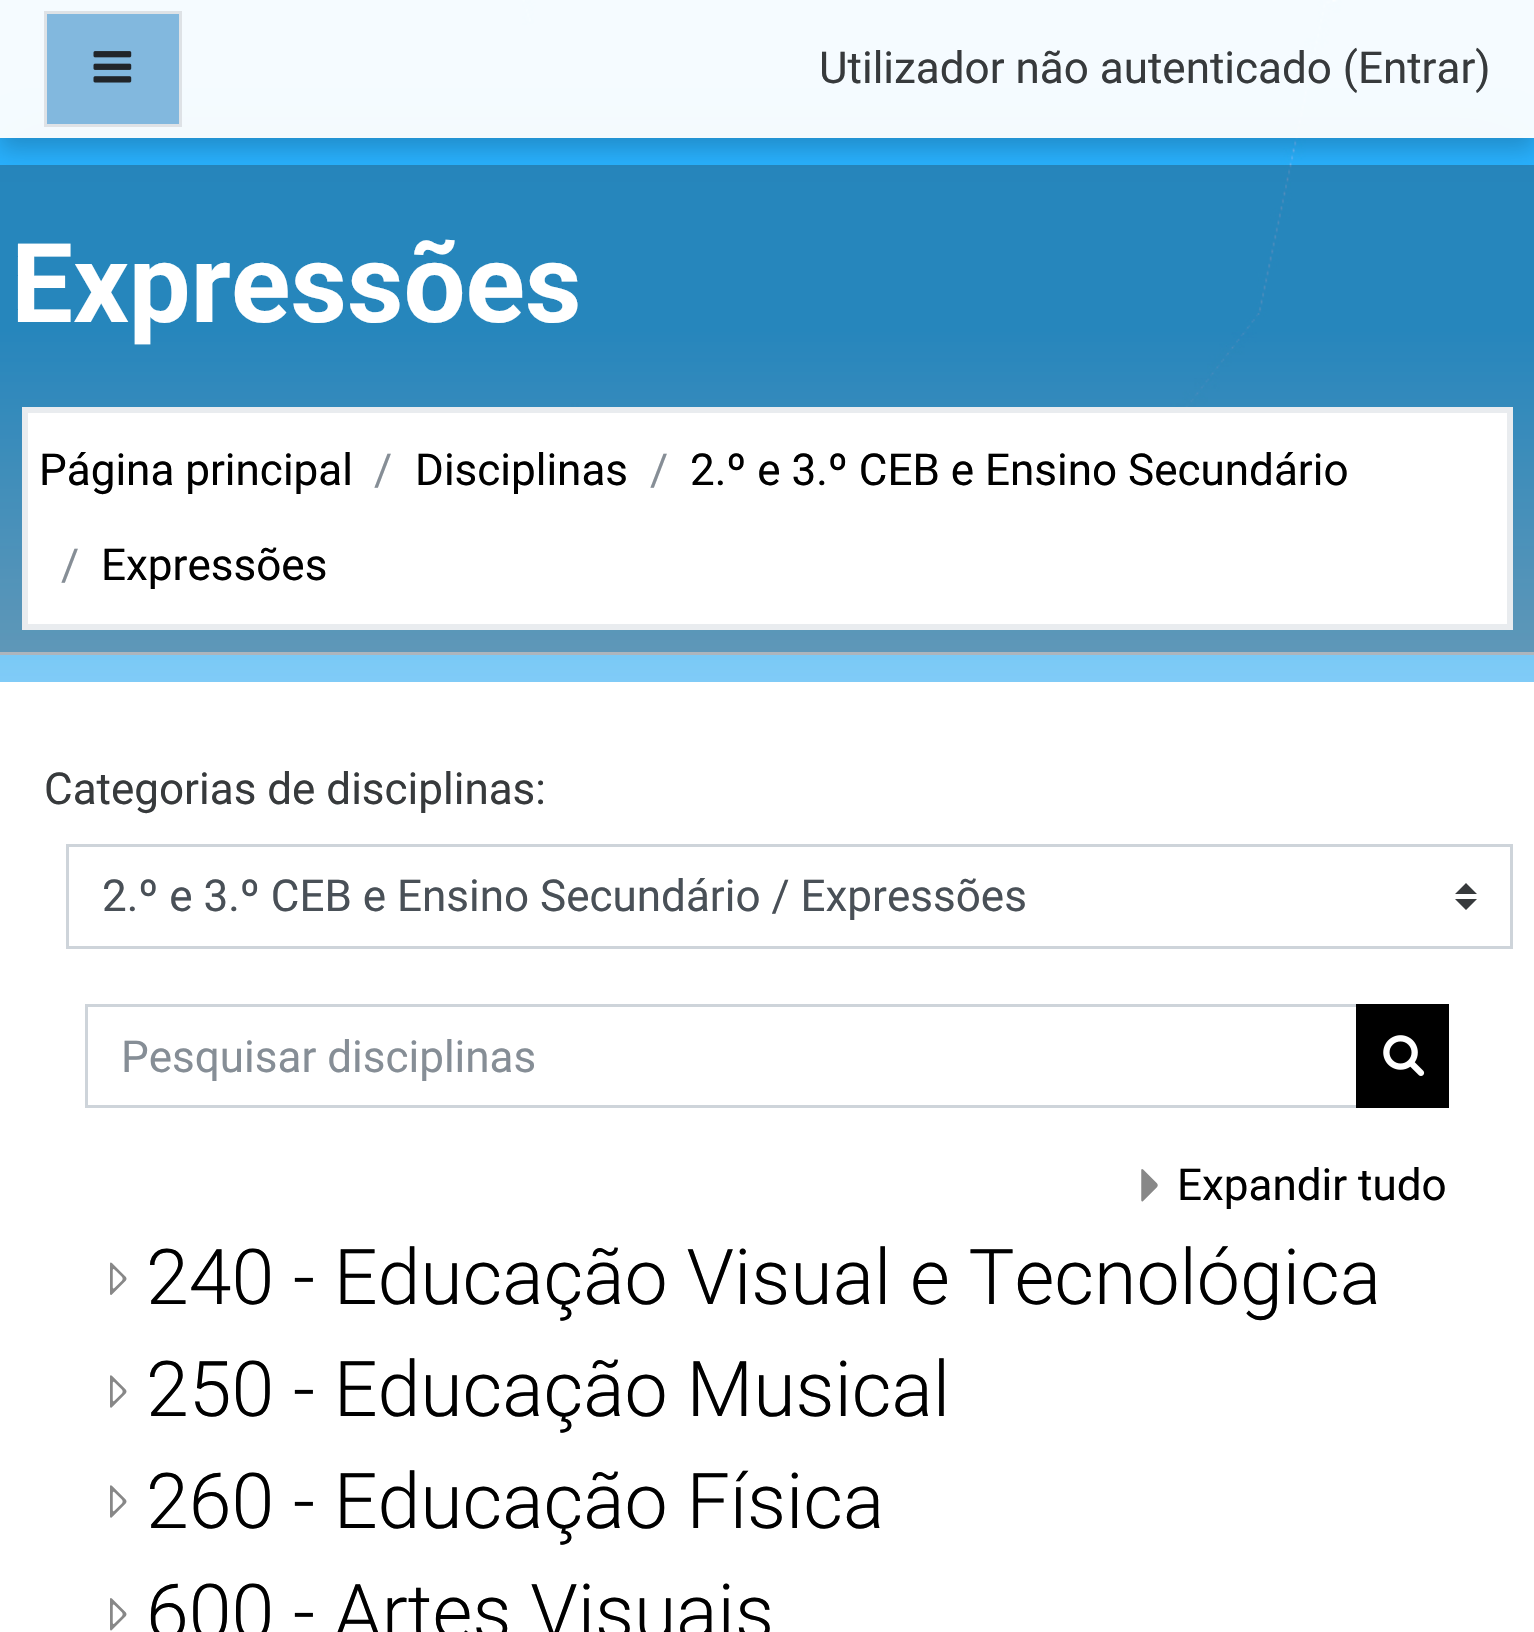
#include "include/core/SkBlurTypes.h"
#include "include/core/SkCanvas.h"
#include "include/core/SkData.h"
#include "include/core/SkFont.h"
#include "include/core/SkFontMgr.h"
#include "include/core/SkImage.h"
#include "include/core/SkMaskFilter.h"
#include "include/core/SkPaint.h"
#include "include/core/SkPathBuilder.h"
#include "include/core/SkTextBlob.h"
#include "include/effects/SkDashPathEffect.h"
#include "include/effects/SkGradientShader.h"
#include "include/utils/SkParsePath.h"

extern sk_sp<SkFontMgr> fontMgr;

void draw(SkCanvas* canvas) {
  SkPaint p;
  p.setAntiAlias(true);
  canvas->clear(SkColorSetRGB(233, 236, 239));
  canvas->drawImageRect(SkImages::DeferredFromEncodedData(SkData::MakeFromFileName("images/1.png")), SkRect::MakeLTRB(0, 0, 1534, 682), SkSamplingOptions());
  canvas->save();
  canvas->clipRect(SkRect::MakeLTRB(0, 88, 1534, 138));
  p.setColor(SkColorSetARGB(153, 0, 0, 0));
  p.setMaskFilter(SkMaskFilter::MakeBlur(kNormal_SkBlurStyle, 34.5f));
  canvas->drawRect(SkRect::MakeLTRB(14, 151, 1521, 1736), p);
  p.setMaskFilter(nullptr);
  canvas->restore();
  p.setColor(SkColorSetARGB(77, 33, 37, 41));
  canvas->drawRect(SkRect::MakeLTRB(0, 165, 1534, 652), p);
  canvas->save();
  canvas->clipPath(SkPathBuilder(SkPathFillType::kEvenOdd).moveTo(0, 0).lineTo(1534, 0).lineTo(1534, 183).lineTo(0, 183).close().moveTo(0, 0).lineTo(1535, 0).lineTo(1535, 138).lineTo(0, 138).close().detach(), true);
  p.setColor(SkColorSetARGB(51, 0, 0, 0));
  p.setMaskFilter(SkMaskFilter::MakeBlur(kNormal_SkBlurStyle, 11));
  canvas->drawRect(SkRect::MakeLTRB(0, 11, 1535, 149), p);
  p.setMaskFilter(nullptr);
  canvas->restore();
  p.setColor(SkColorSetARGB(242, 255, 255, 255));
  canvas->drawRect(SkRect::MakeLTRB(0, 0, 1534, 138), p);
  p.setColor(SkColorSetRGB(130, 184, 222));
  canvas->drawRect(SkRect::MakeLTRB(45.5f, 12.5f, 180.5f, 125.5f), p);
  p.setStyle(SkPaint::kStroke_Style);
  p.setStrokeWidth(3);
  p.setColor(SkColorSetRGB(222, 226, 230));
  canvas->drawRect(SkRect::MakeLTRB(45.5f, 12.5f, 180.5f, 125.5f), p);
  canvas->drawImageRect(SkImages::DeferredFromEncodedData(SkData::MakeFromFileName("images/2.png")), SkRect::MakeLTRB(93, 51, 132, 83), SkSamplingOptions());
  p.setStyle(SkPaint::kFill_Style);
  p.setColor(SkColorSetRGB(173, 181, 189));
  canvas->drawRect(SkRect::MakeLTRB(0, 652, 1534, 655), p);
  p.setColor(SK_ColorWHITE);
  canvas->drawRect(SkRect::MakeLTRB(25, 410, 1510, 627), p);
  p.setStyle(SkPaint::kStroke_Style);
  p.setStrokeWidth(6);
  p.setColor(SkColorSetRGB(233, 236, 239));
  canvas->drawRect(SkRect::MakeLTRB(25, 410, 1510, 627), p);
  p.setStyle(SkPaint::kFill_Style);
  p.setColor(SK_ColorWHITE);
  canvas->drawRect(SkRect::MakeLTRB(0, 682, 1534, 1632), p);
  p.setColor(SkColorSetRGB(55, 58, 60));
  canvas->drawPath(SkPathBuilder().moveTo(1466, 883).lineTo(1455, 894).lineTo(1477, 894).close().moveTo(1466, 910).lineTo(1455, 899).lineTo(1477, 899).close().detach(), p);
  p.setStyle(SkPaint::kStroke_Style);
  p.setStrokeWidth(3);
  p.setColor(SkColorSetRGB(206, 212, 218));
  canvas->drawRect(SkRect::MakeLTRB(67.5f, 845.5f, 1511.5f, 947.5f), p);
  canvas->drawRect(SkRect::MakeLTRB(86.5f, 1005.5f, 1357.5f, 1106.5f), p);
  p.setStyle(SkPaint::kFill_Style);
  p.setColor(SK_ColorBLACK);
  canvas->drawRect(SkRect::MakeLTRB(1356, 1004, 1449, 1108), p);
  canvas->drawImageRect(SkImages::DeferredFromEncodedData(SkData::MakeFromFileName("images/3.png")), SkRect::MakeLTRB(1383, 1035, 1425, 1076), SkSamplingOptions());
  canvas->drawImageRect(SkImages::DeferredFromEncodedData(SkData::MakeFromFileName("images/4.png")), SkRect::MakeLTRB(1141, 1169, 1158, 1202), SkSamplingOptions());
  canvas->drawImageRect(SkImages::DeferredFromEncodedData(SkData::MakeFromFileName("images/5.png")), SkRect::MakeLTRB(110, 1262, 127, 1295), SkSamplingOptions());
  canvas->drawImageRect(SkImages::DeferredFromEncodedData(SkData::MakeFromFileName("images/6.png")), SkRect::MakeLTRB(110, 1375, 127, 1408), SkSamplingOptions());
  canvas->drawImageRect(SkImages::DeferredFromEncodedData(SkData::MakeFromFileName("images/6.png")), SkRect::MakeLTRB(110, 1485, 127, 1518), SkSamplingOptions());
  canvas->drawImageRect(SkImages::DeferredFromEncodedData(SkData::MakeFromFileName("images/7.png")), SkRect::MakeLTRB(110, 1598, 127, 1631), SkSamplingOptions());
  SkFont font1(fontMgr->matchFamilyStyle("Roboto", SkFontStyle::Normal()), 44);
  font1.setSubpixel(true);
  p.setColor(SkColorSetRGB(55, 58, 60));
  canvas->drawString("Utilizador não autenticado (Entrar)", 819, 83, font1, p);
  SkFont font2(fontMgr->matchFamilyStyle("Roboto", SkFontStyle::Bold()), 110);
  font2.setSubpixel(true);
  p.setColor(SK_ColorWHITE);
  canvas->drawString("Expressões", 11, 322, font2, p);
  p.setColor(SK_ColorBLACK);
  canvas->drawString("Página principal", 39, 485, font1, p);
  p.setColor(SkColorSetRGB(134, 142, 150));
  canvas->drawString("/", 374, 485, font1, p);
  p.setColor(SK_ColorBLACK);
  canvas->drawString("Disciplinas", 415, 485, font1, p);
  p.setColor(SkColorSetRGB(134, 142, 150));
  canvas->drawString("/", 650, 485, font1, p);
  p.setColor(SK_ColorBLACK);
  canvas->drawString("2.º e 3.º CEB e Ensino Secundário", 690, 485, font1, p);
  p.setColor(SkColorSetRGB(134, 142, 150));
  canvas->drawString("/", 61, 580, font1, p);
  p.setColor(SK_ColorBLACK);
  canvas->drawString("Expressões", 101, 580, font1, p);
  p.setColor(SkColorSetRGB(55, 58, 60));
  canvas->drawString("Categorias de disciplinas:", 44, 804, font1, p);
  p.setColor(SkColorSetRGB(73, 80, 87));
  canvas->drawString("2.º e 3.º CEB e Ensino Secundário / Expressões", 102, 911, font1, p);
  p.setColor(SkColorSetRGB(134, 142, 150));
  canvas->drawString("Pesquisar disciplinas", 121, 1072, font1, p);
  p.setColor(SK_ColorBLACK);
  canvas->drawString("Expandir tudo", 1177, 1200, font1, p);
  SkFont font3(fontMgr->matchFamilyStyle("Roboto", SkFontStyle(300, SkFontStyle::kNormal_Width, SkFontStyle::kUpright_Slant)), 77);
  font3.setSubpixel(true);
  canvas->drawString("240 - Educação Visual e Tecnológica", 146, 1304, font3, p);
  canvas->drawString("250 - Educação Musical", 146, 1416, font3, p);
  canvas->drawString("260 - Educação Física", 146, 1528, font3, p);
  canvas->drawString("600 - Artes Visuais", 146, 1639, font3, p);
}
